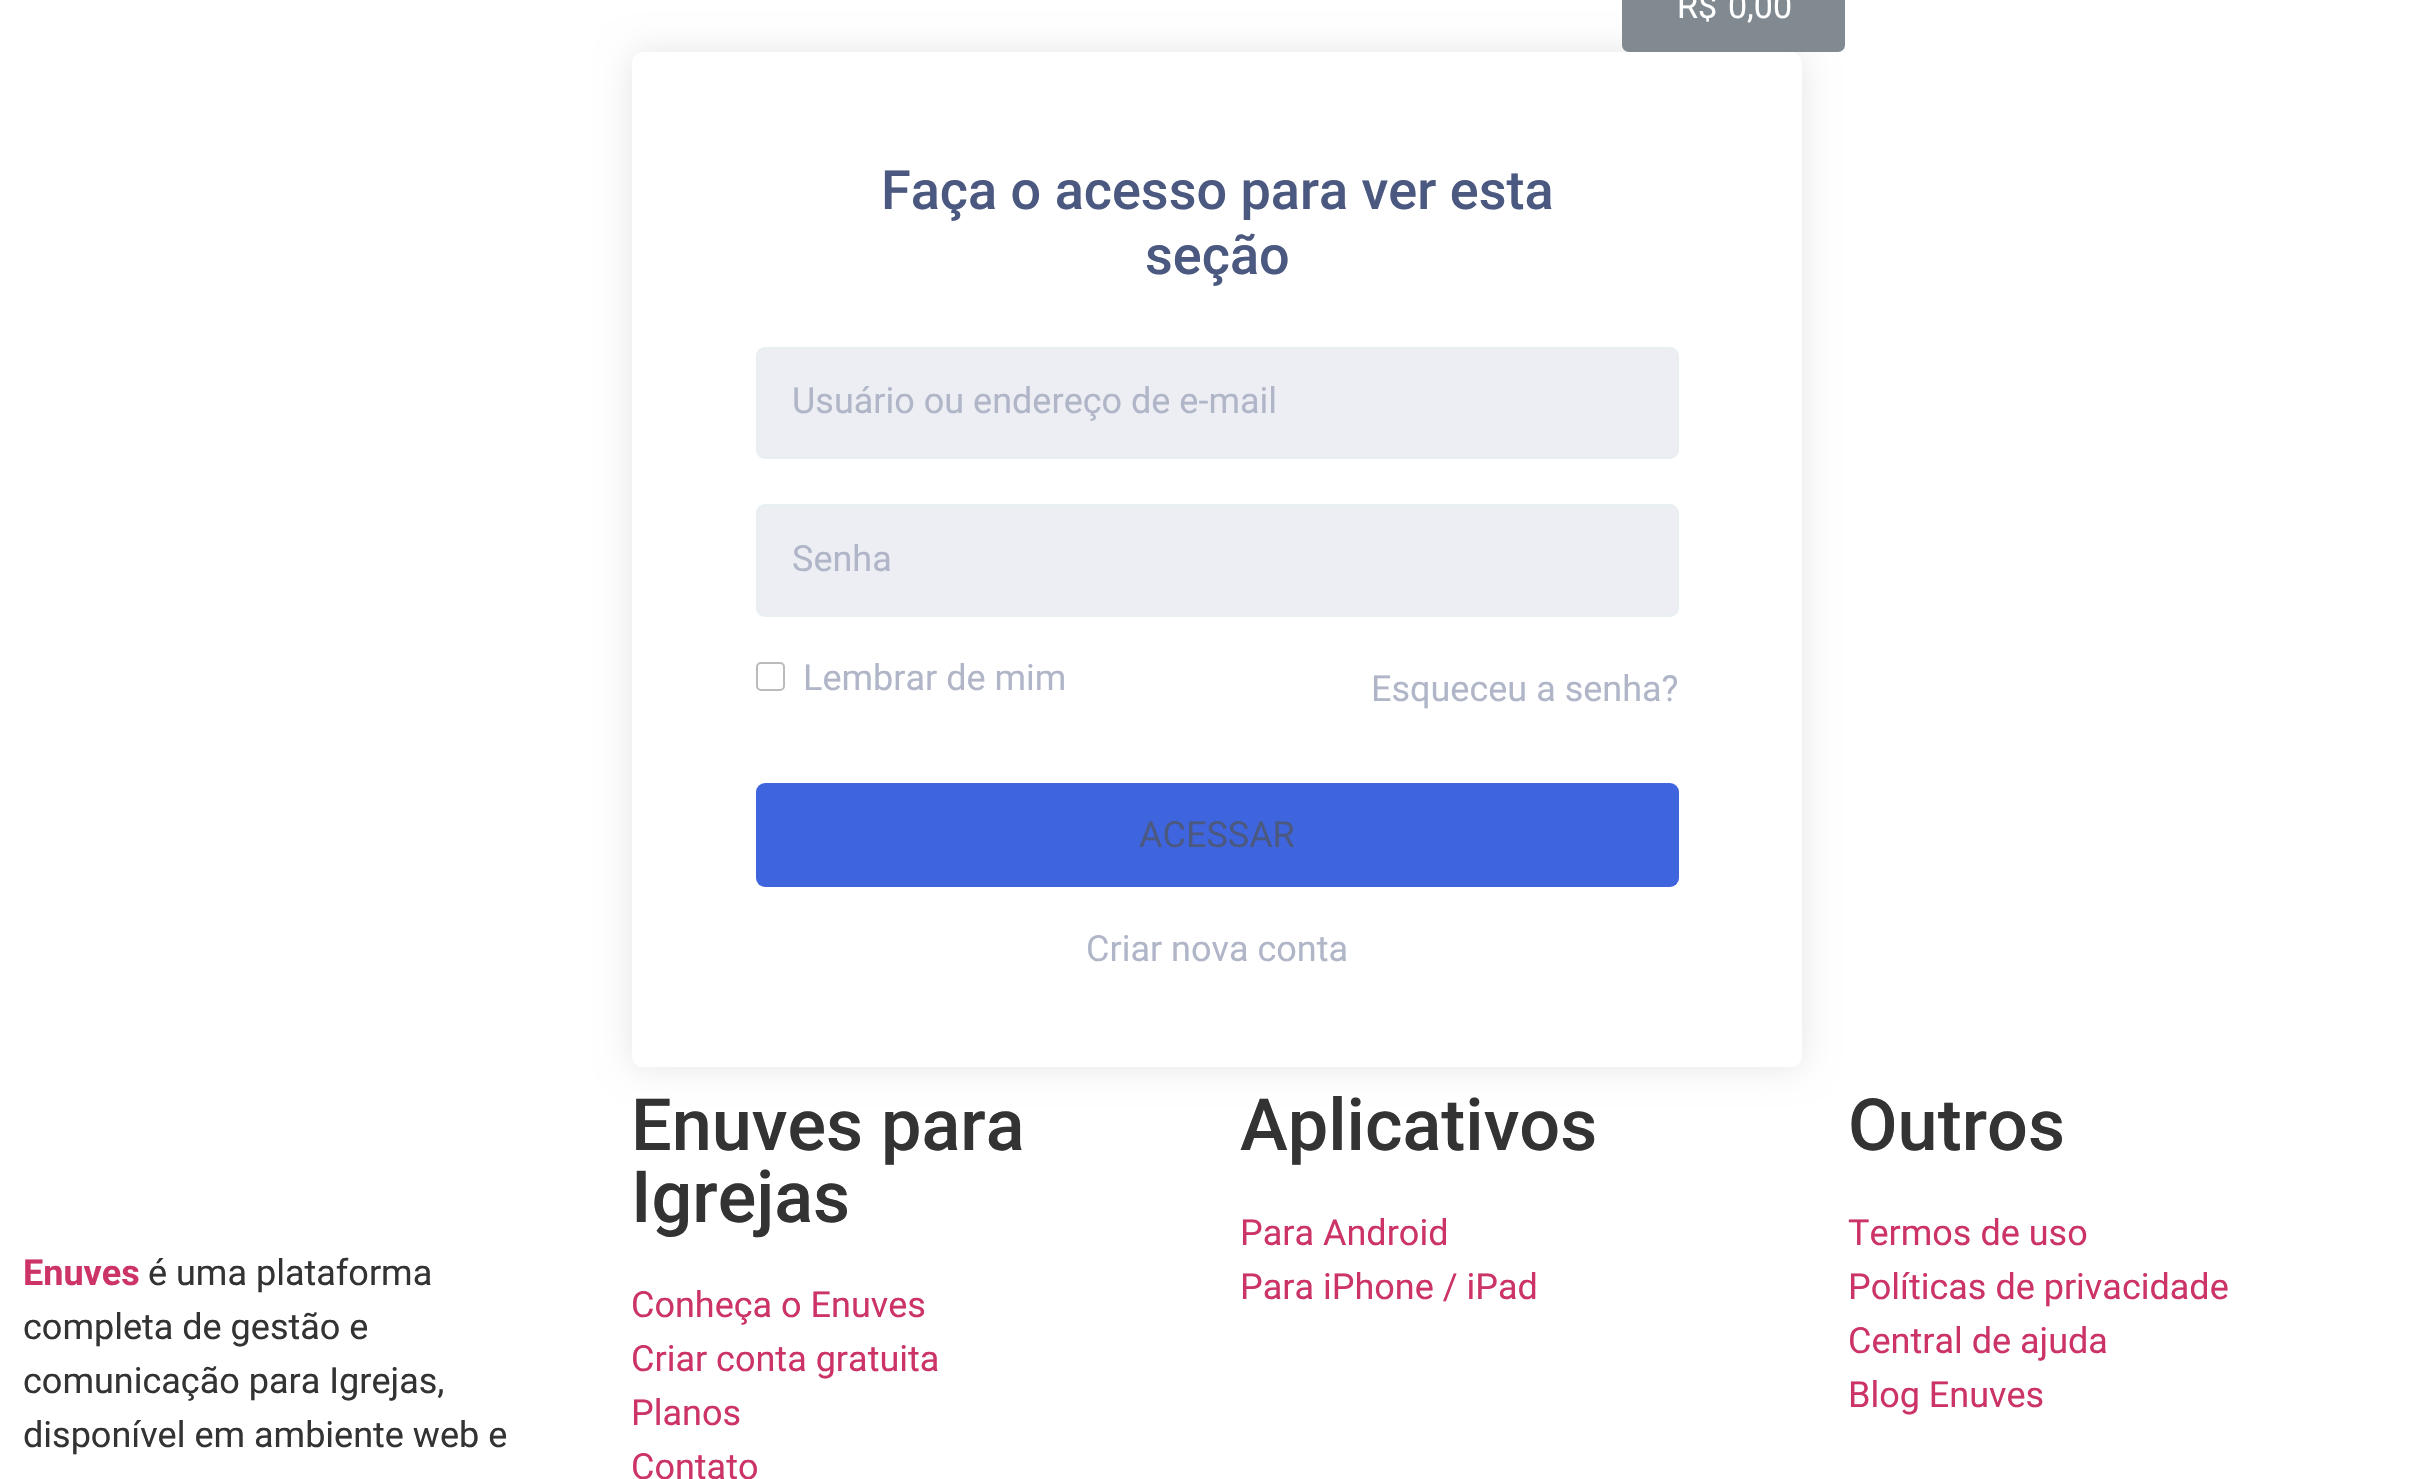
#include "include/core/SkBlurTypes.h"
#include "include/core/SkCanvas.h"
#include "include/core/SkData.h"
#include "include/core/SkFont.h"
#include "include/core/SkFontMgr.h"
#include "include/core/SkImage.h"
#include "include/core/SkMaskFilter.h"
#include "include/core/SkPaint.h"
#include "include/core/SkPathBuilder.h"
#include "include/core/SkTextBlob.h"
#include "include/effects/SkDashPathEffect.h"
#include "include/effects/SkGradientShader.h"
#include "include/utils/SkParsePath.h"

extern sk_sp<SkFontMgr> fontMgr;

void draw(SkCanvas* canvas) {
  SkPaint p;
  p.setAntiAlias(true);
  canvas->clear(SK_ColorWHITE);
  canvas->save();
  canvas->clipPath(SkPathBuilder(SkPathFillType::kEvenOdd).moveTo(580, 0).lineTo(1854, 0).lineTo(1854, 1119).lineTo(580, 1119).close().moveTo(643, 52).lineTo(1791, 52).cubicTo(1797, 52, 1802, 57, 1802, 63).lineTo(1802, 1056).cubicTo(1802, 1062, 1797, 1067, 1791, 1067).lineTo(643, 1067).cubicTo(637, 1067, 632, 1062, 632, 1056).lineTo(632, 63).cubicTo(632, 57, 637, 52, 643, 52).close().detach(), true);
  p.setColor(SkColorSetARGB(26, 0, 0, 0));
  p.setMaskFilter(SkMaskFilter::MakeBlur(kNormal_SkBlurStyle, 17));
  canvas->drawRoundRect(SkRect::MakeLTRB(632, 52, 1802, 1067), 11, 11, p);
  p.setMaskFilter(nullptr);
  canvas->restore();
  p.setColor(SkColorSetRGB(129, 138, 145));
  canvas->drawRoundRect(SkRect::MakeLTRB(1622, -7, 1845, 52), 7, 7, p);
  p.setColor(SkColorSetRGB(236, 238, 244));
  canvas->drawRoundRect(SkRect::MakeLTRB(757, 348, 1678, 458), 8, 8, p);
  p.setStyle(SkPaint::kStroke_Style);
  p.setStrokeWidth(2);
  p.setColor(SkColorSetRGB(232, 239, 241));
  canvas->drawRoundRect(SkRect::MakeLTRB(757, 348, 1678, 458), 8, 8, p);
  p.setStyle(SkPaint::kFill_Style);
  p.setColor(SkColorSetRGB(236, 238, 244));
  canvas->drawRoundRect(SkRect::MakeLTRB(757, 505, 1678, 616), 8, 8, p);
  p.setStyle(SkPaint::kStroke_Style);
  p.setColor(SkColorSetRGB(232, 239, 241));
  canvas->drawRoundRect(SkRect::MakeLTRB(757, 505, 1678, 616), 8, 8, p);
  p.setColor(SkColorSetRGB(187, 187, 187));
  canvas->drawRoundRect(SkRect::MakeLTRB(757, 663, 784, 690), 4, 4, p);
  p.setStyle(SkPaint::kFill_Style);
  p.setColor(SkColorSetRGB(62, 100, 222));
  canvas->drawRoundRect(SkRect::MakeLTRB(756, 783, 1679, 887), 9, 9, p);
  SkFont font1(fontMgr->matchFamilyStyle("Roboto", SkFontStyle::Normal()), 34);
  font1.setSubpixel(true);
  p.setColor(SK_ColorWHITE);
  canvas->drawString("R$", 1677, 18, font1, p);
  canvas->drawString("0,00", 1728, 18, font1, p);
  SkFont font2(fontMgr->matchFamilyStyle("Roboto", SkFontStyle(500, SkFontStyle::kNormal_Width, SkFontStyle::kUpright_Slant)), 54);
  font2.setSubpixel(true);
  p.setColor(SkColorSetRGB(75, 89, 129));
  canvas->drawString("Faça o acesso para ver esta", 881, 209, font2, p);
  canvas->drawString("seção", 1145, 274, font2, p);
  SkFont font3(fontMgr->matchFamilyStyle("Roboto", SkFontStyle::Normal()), 36);
  font3.setSubpixel(true);
  p.setColor(SkColorSetRGB(176, 182, 200));
  canvas->drawString("Usuário ou endereço de e-mail", 792, 413, font3, p);
  canvas->drawString("Senha", 792, 571, font3, p);
  canvas->drawString("Lembrar de mim", 803, 690, font3, p);
  canvas->drawString("Esqueceu a senha?", 1371, 701, font3, p);
  p.setColor(SkColorSetRGB(75, 89, 129));
  canvas->drawString("ACESSAR", 1139, 847, font3, p);
  p.setColor(SkColorSetRGB(176, 182, 200));
  canvas->drawString("Criar nova conta", 1086, 961, font3, p);
  SkFont font4(fontMgr->matchFamilyStyle("Roboto", SkFontStyle::Bold()), 36);
  font4.setSubpixel(true);
  p.setColor(SkColorSetRGB(204, 51, 102));
  canvas->drawString("Enuves", 23, 1285, font4, p);
  p.setColor(SkColorSetRGB(51, 51, 51));
  canvas->drawString("é uma plataforma", 148, 1285, font3, p);
  canvas->drawString("completa de gestão e", 23, 1339, font3, p);
  canvas->drawString("comunicação para Igrejas,", 23, 1393, font3, p);
  canvas->drawString("disponível em ambiente web e", 23, 1447, font3, p);
  SkFont font5(fontMgr->matchFamilyStyle("Roboto", SkFontStyle(500, SkFontStyle::kNormal_Width, SkFontStyle::kUpright_Slant)), 72);
  font5.setSubpixel(true);
  canvas->drawString("Enuves para", 631, 1150, font5, p);
  canvas->drawString("Igrejas", 631, 1222, font5, p);
  p.setColor(SkColorSetRGB(204, 51, 102));
  canvas->drawString("Conheça o Enuves", 631, 1317, font3, p);
  canvas->drawString("Criar conta gratuita", 631, 1371, font3, p);
  canvas->drawString("Planos", 631, 1425, font3, p);
  canvas->drawString("Contato", 631, 1479, font3, p);
  p.setColor(SkColorSetRGB(51, 51, 51));
  canvas->drawString("Aplicativos", 1240, 1150, font5, p);
  p.setColor(SkColorSetRGB(204, 51, 102));
  canvas->drawString("Para Android", 1240, 1245, font3, p);
  canvas->drawString("Para iPhone / iPad", 1240, 1299, font3, p);
  p.setColor(SkColorSetRGB(51, 51, 51));
  canvas->drawString("Outros", 1848, 1150, font5, p);
  p.setColor(SkColorSetRGB(204, 51, 102));
  canvas->drawString("Termos de uso", 1848, 1245, font3, p);
  canvas->drawString("Políticas de privacidade", 1848, 1299, font3, p);
  canvas->drawString("Central de ajuda", 1848, 1353, font3, p);
  canvas->drawString("Blog Enuves", 1848, 1407, font3, p);
}
